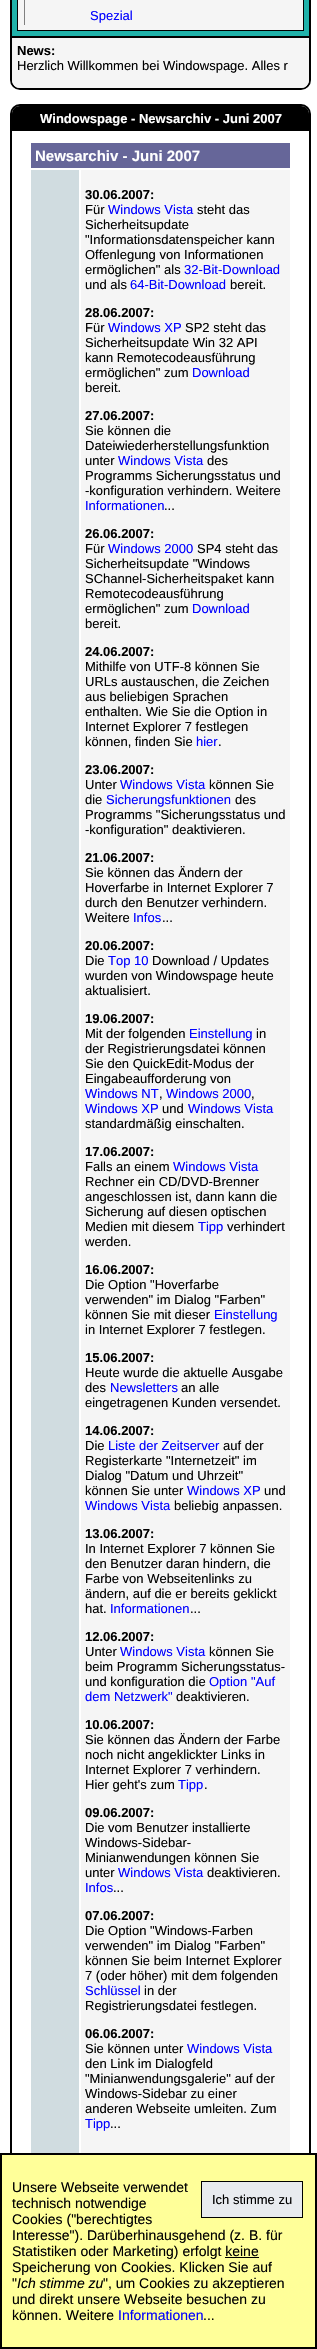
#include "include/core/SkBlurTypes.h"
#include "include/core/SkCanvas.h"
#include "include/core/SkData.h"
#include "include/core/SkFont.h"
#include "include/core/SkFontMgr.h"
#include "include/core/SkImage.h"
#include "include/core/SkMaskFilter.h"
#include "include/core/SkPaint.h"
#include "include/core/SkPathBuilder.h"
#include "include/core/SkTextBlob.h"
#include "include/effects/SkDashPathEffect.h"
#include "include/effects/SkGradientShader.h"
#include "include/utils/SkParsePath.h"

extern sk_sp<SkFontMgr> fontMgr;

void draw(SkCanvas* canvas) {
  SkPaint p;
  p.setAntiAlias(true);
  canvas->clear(SK_ColorWHITE);
  p.setStyle(SkPaint::kStroke_Style);
  p.setStrokeWidth(2);
  p.setColor(SK_ColorBLACK);
  canvas->drawRoundRect(SkRect::MakeLTRB(11, -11, 310, 89), 9, 9, p);
  p.setStyle(SkPaint::kFill_Style);
  p.setColor(SkColorSetRGB(32, 178, 170));
  canvas->drawRect(SkRect::MakeLTRB(12, 0, 309, 36), p);
  p.setColor(SkColorSetRGB(245, 245, 245));
  canvas->drawRect(SkRect::MakeLTRB(18, 0, 303, 30), p);
  p.setColor(SK_ColorBLACK);
  canvas->drawRect(SkRect::MakeLTRB(303, 0, 304, 31), p);
  canvas->drawRect(SkRect::MakeLTRB(17, 30, 304, 31), p);
  canvas->drawRect(SkRect::MakeLTRB(17, 0, 18, 31), p);
  p.setColor(SkColorSetRGB(128, 128, 128));
  canvas->drawRect(SkRect::MakeLTRB(24, 0, 25, 25), p);
  p.setColor(SkColorSetRGB(245, 245, 245));
  canvas->drawPath(SkPathBuilder().moveTo(12, 36).lineTo(309, 36).lineTo(309, 80).cubicTo(309, 84.5f, 305.5f, 88, 301, 88).lineTo(20, 88).cubicTo(15.5f, 88, 12, 84.5f, 12, 80).close().detach(), p);
  p.setColor(SK_ColorBLACK);
  canvas->drawRect(SkRect::MakeLTRB(12, 36, 309, 38), p);
  p.setStyle(SkPaint::kStroke_Style);
  canvas->drawRoundRect(SkRect::MakeLTRB(11, 105, 310, 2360), 9, 9, p);
  p.setStyle(SkPaint::kFill_Style);
  canvas->drawPath(SkPathBuilder().moveTo(20, 106).lineTo(301, 106).cubicTo(305.5f, 106, 309, 109.5f, 309, 114).lineTo(309, 131).lineTo(12, 131).lineTo(12, 114).cubicTo(12, 109.5f, 15.5f, 106, 20, 106).close().detach(), p);
  p.setColor(SkColorSetRGB(102, 102, 153));
  canvas->drawRect(SkRect::MakeLTRB(31, 143, 290, 168), p);
  p.setColor(SkColorSetRGB(208, 220, 224));
  canvas->drawRect(SkRect::MakeLTRB(31, 170, 79, 2153), p);
  p.setColor(SkColorSetRGB(245, 245, 245));
  canvas->drawRect(SkRect::MakeLTRB(81, 170, 290, 2153), p);
  p.setColor(SkColorSetRGB(255, 255, 153));
  canvas->drawRect(SkRect::MakeLTRB(1, 2154, 316, 2348), p);
  p.setStyle(SkPaint::kStroke_Style);
  p.setColor(SK_ColorBLACK);
  canvas->drawRect(SkRect::MakeLTRB(1, 2154, 316, 2348), p);
  p.setStyle(SkPaint::kFill_Style);
  canvas->drawRect(SkRect::MakeLTRB(225, 2257, 259, 2258), p);
  p.setColor(SkColorSetRGB(232, 235, 239));
  canvas->drawRect(SkRect::MakeLTRB(201.5f, 2181.5f, 302.5f, 2217.5f), p);
  p.setStyle(SkPaint::kStroke_Style);
  p.setStrokeWidth(1);
  p.setColor(SK_ColorBLACK);
  canvas->drawRect(SkRect::MakeLTRB(201.5f, 2181.5f, 302.5f, 2217.5f), p);
  SkFont font1(fontMgr->matchFamilyStyle("Liberation Sans", SkFontStyle::Normal()), 13);
  font1.setSubpixel(true);
  p.setStyle(SkPaint::kFill_Style);
  p.setColor(SkColorSetRGB(0, 0, 255));
  canvas->drawString("Spezial", 90, 20, font1, p);
  SkFont font2(fontMgr->matchFamilyStyle("Liberation Sans", SkFontStyle::Bold()), 13);
  font2.setSubpixel(true);
  p.setColor(SK_ColorBLACK);
  canvas->drawString("News:", 17, 55, font2, p);
  canvas->drawString("Herzlich Willkommen bei Windowspage. Alles r", 17, 70, font1, p);
  p.setColor(SK_ColorWHITE);
  canvas->drawString("Windowspage - Newsarchiv - Juni 2007", 40, 123, font2, p);
  SkFont font3(fontMgr->matchFamilyStyle("Liberation Sans", SkFontStyle::Bold()), 15);
  font3.setSubpixel(true);
  canvas->drawString("Newsarchiv - Juni 2007", 35, 161, font3, p);
  p.setColor(SK_ColorBLACK);
  canvas->drawString("30.06.2007:", 85, 199, font2, p);
  canvas->drawString("Für", 85, 214, font1, p);
  p.setColor(SkColorSetRGB(0, 0, 255));
  canvas->drawString("Windows Vista", 108, 214, font1, p);
  p.setColor(SK_ColorBLACK);
  canvas->drawString("steht das", 197, 214, font1, p);
  canvas->drawString("Sicherheitsupdate", 85, 229, font1, p);
  canvas->drawString("\"Informationsdatenspeicher kann", 85, 244, font1, p);
  canvas->drawString("Offenlegung von Informationen", 85, 259, font1, p);
  canvas->drawString("ermöglichen\" als", 85, 274, font1, p);
  p.setColor(SkColorSetRGB(0, 0, 255));
  canvas->drawString("32-Bit-Download", 184, 274, font1, p);
  p.setColor(SK_ColorBLACK);
  canvas->drawString("und als", 85, 289, font1, p);
  p.setColor(SkColorSetRGB(0, 0, 255));
  canvas->drawString("64-Bit-Download", 130, 289, font1, p);
  p.setColor(SK_ColorBLACK);
  canvas->drawString("bereit.", 230, 289, font1, p);
  canvas->drawString("28.06.2007:", 85, 317, font2, p);
  canvas->drawString("Für", 85, 332, font1, p);
  p.setColor(SkColorSetRGB(0, 0, 255));
  canvas->drawString("Windows XP", 108, 332, font1, p);
  p.setColor(SK_ColorBLACK);
  canvas->drawString("SP2 steht das", 185, 332, font1, p);
  canvas->drawString("Sicherheitsupdate Win 32 API", 85, 347, font1, p);
  canvas->drawString("kann Remotecodeausführung", 85, 362, font1, p);
  canvas->drawString("ermöglichen\" zum", 85, 377, font1, p);
  p.setColor(SkColorSetRGB(0, 0, 255));
  canvas->drawString("Download", 192, 377, font1, p);
  p.setColor(SK_ColorBLACK);
  canvas->drawString("bereit.", 85, 392, font1, p);
  canvas->drawString("27.06.2007:", 85, 420, font2, p);
  canvas->drawString("Sie können die", 85, 435, font1, p);
  canvas->drawString("Dateiwiederherstellungsfunktion", 85, 450, font1, p);
  canvas->drawString("unter", 85, 465, font1, p);
  p.setColor(SkColorSetRGB(0, 0, 255));
  canvas->drawString("Windows Vista", 118, 465, font1, p);
  p.setColor(SK_ColorBLACK);
  canvas->drawString("des", 207, 465, font1, p);
  canvas->drawString("Programms Sicherungsstatus und", 85, 480, font1, p);
  canvas->drawString("-konfiguration verhindern. Weitere", 85, 495, font1, p);
  p.setColor(SkColorSetRGB(0, 0, 255));
  canvas->drawString("Informationen", 85, 510, font1, p);
  p.setColor(SK_ColorBLACK);
  canvas->drawString("...", 164, 510, font1, p);
  canvas->drawString("26.06.2007:", 85, 538, font2, p);
  canvas->drawString("Für", 85, 553, font1, p);
  p.setColor(SkColorSetRGB(0, 0, 255));
  canvas->drawString("Windows 2000", 108, 553, font1, p);
  p.setColor(SK_ColorBLACK);
  canvas->drawString("SP4 steht das", 197, 553, font1, p);
  canvas->drawString("Sicherheitsupdate \"Windows", 85, 568, font1, p);
  canvas->drawString("SChannel-Sicherheitspaket kann", 85, 583, font1, p);
  canvas->drawString("Remotecodeausführung", 85, 598, font1, p);
  canvas->drawString("ermöglichen\" zum", 85, 613, font1, p);
  p.setColor(SkColorSetRGB(0, 0, 255));
  canvas->drawString("Download", 192, 613, font1, p);
  p.setColor(SK_ColorBLACK);
  canvas->drawString("bereit.", 85, 628, font1, p);
  canvas->drawString("24.06.2007:", 85, 656, font2, p);
  canvas->drawString("Mithilfe von UTF-8 können Sie", 85, 671, font1, p);
  canvas->drawString("URLs austauschen, die Zeichen", 85, 686, font1, p);
  canvas->drawString("aus beliebigen Sprachen", 85, 701, font1, p);
  canvas->drawString("enthalten. Wie Sie die Option in", 85, 716, font1, p);
  canvas->drawString("Internet Explorer 7 festlegen", 85, 731, font1, p);
  canvas->drawString("können, finden Sie", 85, 746, font1, p);
  p.setColor(SkColorSetRGB(0, 0, 255));
  canvas->drawString("hier", 196, 746, font1, p);
  p.setColor(SK_ColorBLACK);
  canvas->drawString(".", 218, 746, font1, p);
  canvas->drawString("23.06.2007:", 85, 774, font2, p);
  canvas->drawString("Unter", 85, 789, font1, p);
  p.setColor(SkColorSetRGB(0, 0, 255));
  canvas->drawString("Windows Vista", 120, 789, font1, p);
  p.setColor(SK_ColorBLACK);
  canvas->drawString("können Sie", 209, 789, font1, p);
  canvas->drawString("die", 85, 804, font1, p);
  p.setColor(SkColorSetRGB(0, 0, 255));
  canvas->drawString("Sicherungsfunktionen", 106, 804, font1, p);
  p.setColor(SK_ColorBLACK);
  canvas->drawString("des", 235, 804, font1, p);
  canvas->drawString("Programms \"Sicherungsstatus und", 85, 819, font1, p);
  canvas->drawString("-konfiguration\" deaktivieren.", 85, 834, font1, p);
  canvas->drawString("21.06.2007:", 85, 862, font2, p);
  canvas->drawString("Sie können das Ändern der", 85, 877, font1, p);
  canvas->drawString("Hoverfarbe in Internet Explorer 7", 85, 892, font1, p);
  canvas->drawString("durch den Benutzer verhindern.", 85, 907, font1, p);
  canvas->drawString("Weitere", 85, 922, font1, p);
  p.setColor(SkColorSetRGB(0, 0, 255));
  canvas->drawString("Infos", 133, 922, font1, p);
  p.setColor(SK_ColorBLACK);
  canvas->drawString("...", 162, 922, font1, p);
  canvas->drawString("20.06.2007:", 85, 950, font2, p);
  canvas->drawString("Die", 85, 965, font1, p);
  p.setColor(SkColorSetRGB(0, 0, 255));
  canvas->drawString("Top 10", 108, 965, font1, p);
  p.setColor(SK_ColorBLACK);
  canvas->drawString("Download / Updates", 152, 965, font1, p);
  canvas->drawString("wurden von Windowspage heute", 85, 980, font1, p);
  canvas->drawString("aktualisiert.", 85, 995, font1, p);
  canvas->drawString("19.06.2007:", 85, 1023, font2, p);
  canvas->drawString("Mit der folgenden", 85, 1038, font1, p);
  p.setColor(SkColorSetRGB(0, 0, 255));
  canvas->drawString("Einstellung", 189, 1038, font1, p);
  p.setColor(SK_ColorBLACK);
  canvas->drawString("in", 256, 1038, font1, p);
  canvas->drawString("der Registrierungsdatei können", 85, 1053, font1, p);
  canvas->drawString("Sie den QuickEdit-Modus der", 85, 1068, font1, p);
  canvas->drawString("Eingabeaufforderung von", 85, 1083, font1, p);
  p.setColor(SkColorSetRGB(0, 0, 255));
  canvas->drawString("Windows NT", 85, 1098, font1, p);
  p.setColor(SK_ColorBLACK);
  canvas->drawString(",", 159, 1098, font1, p);
  p.setColor(SkColorSetRGB(0, 0, 255));
  canvas->drawString("Windows 2000", 166, 1098, font1, p);
  p.setColor(SK_ColorBLACK);
  canvas->drawString(",", 251, 1098, font1, p);
  p.setColor(SkColorSetRGB(0, 0, 255));
  canvas->drawString("Windows XP", 85, 1113, font1, p);
  p.setColor(SK_ColorBLACK);
  canvas->drawString("und", 162, 1113, font1, p);
  p.setColor(SkColorSetRGB(0, 0, 255));
  canvas->drawString("Windows Vista", 188, 1113, font1, p);
  p.setColor(SK_ColorBLACK);
  canvas->drawString("standardmäßig einschalten.", 85, 1128, font1, p);
  canvas->drawString("17.06.2007:", 85, 1156, font2, p);
  canvas->drawString("Falls an einem", 85, 1171, font1, p);
  p.setColor(SkColorSetRGB(0, 0, 255));
  canvas->drawString("Windows Vista", 173, 1171, font1, p);
  p.setColor(SK_ColorBLACK);
  canvas->drawString("Rechner ein CD/DVD-Brenner", 85, 1186, font1, p);
  canvas->drawString("angeschlossen ist, dann kann die", 85, 1201, font1, p);
  canvas->drawString("Sicherung auf diesen optischen", 85, 1216, font1, p);
  canvas->drawString("Medien mit diesem", 85, 1231, font1, p);
  p.setColor(SkColorSetRGB(0, 0, 255));
  canvas->drawString("Tipp", 198, 1231, font1, p);
  p.setColor(SK_ColorBLACK);
  canvas->drawString("verhindert", 227, 1231, font1, p);
  canvas->drawString("werden.", 85, 1246, font1, p);
  canvas->drawString("16.06.2007:", 85, 1274, font2, p);
  canvas->drawString("Die Option \"Hoverfarbe", 85, 1289, font1, p);
  canvas->drawString("verwenden\" im Dialog \"Farben\"", 85, 1304, font1, p);
  canvas->drawString("können Sie mit dieser", 85, 1319, font1, p);
  p.setColor(SkColorSetRGB(0, 0, 255));
  canvas->drawString("Einstellung", 214, 1319, font1, p);
  p.setColor(SK_ColorBLACK);
  canvas->drawString("in Internet Explorer 7 festlegen.", 85, 1334, font1, p);
  canvas->drawString("15.06.2007:", 85, 1362, font2, p);
  canvas->drawString("Heute wurde die aktuelle Ausgabe", 85, 1377, font1, p);
  canvas->drawString("des", 85, 1392, font1, p);
  p.setColor(SkColorSetRGB(0, 0, 255));
  canvas->drawString("Newsletters", 110, 1392, font1, p);
  p.setColor(SK_ColorBLACK);
  canvas->drawString("an alle", 181, 1392, font1, p);
  canvas->drawString("eingetragenen Kunden versendet.", 85, 1407, font1, p);
  canvas->drawString("14.06.2007:", 85, 1435, font2, p);
  canvas->drawString("Die", 85, 1450, font1, p);
  p.setColor(SkColorSetRGB(0, 0, 255));
  canvas->drawString("Liste der Zeitserver", 108, 1450, font1, p);
  p.setColor(SK_ColorBLACK);
  canvas->drawString("auf der", 223, 1450, font1, p);
  canvas->drawString("Registerkarte \"Internetzeit\" im", 85, 1465, font1, p);
  canvas->drawString("Dialog \"Datum und Uhrzeit\"", 85, 1480, font1, p);
  canvas->drawString("können Sie unter", 85, 1495, font1, p);
  p.setColor(SkColorSetRGB(0, 0, 255));
  canvas->drawString("Windows XP", 187, 1495, font1, p);
  p.setColor(SK_ColorBLACK);
  canvas->drawString("und", 264, 1495, font1, p);
  p.setColor(SkColorSetRGB(0, 0, 255));
  canvas->drawString("Windows Vista", 85, 1510, font1, p);
  p.setColor(SK_ColorBLACK);
  canvas->drawString("beliebig anpassen.", 174, 1510, font1, p);
  canvas->drawString("13.06.2007:", 85, 1538, font2, p);
  canvas->drawString("In Internet Explorer 7 können Sie", 85, 1553, font1, p);
  canvas->drawString("den Benutzer daran hindern, die", 85, 1568, font1, p);
  canvas->drawString("Farbe von Webseitenlinks zu", 85, 1583, font1, p);
  canvas->drawString("ändern, auf die er bereits geklickt", 85, 1598, font1, p);
  canvas->drawString("hat.", 85, 1613, font1, p);
  p.setColor(SkColorSetRGB(0, 0, 255));
  canvas->drawString("Informationen", 110, 1613, font1, p);
  p.setColor(SK_ColorBLACK);
  canvas->drawString("...", 190, 1613, font1, p);
  canvas->drawString("12.06.2007:", 85, 1641, font2, p);
  canvas->drawString("Unter", 85, 1656, font1, p);
  p.setColor(SkColorSetRGB(0, 0, 255));
  canvas->drawString("Windows Vista", 120, 1656, font1, p);
  p.setColor(SK_ColorBLACK);
  canvas->drawString("können Sie", 209, 1656, font1, p);
  canvas->drawString("beim Programm Sicherungsstatus-", 85, 1671, font1, p);
  canvas->drawString("und konfiguration die", 85, 1686, font1, p);
  p.setColor(SkColorSetRGB(0, 0, 255));
  canvas->drawString("Option \"Auf", 209, 1686, font1, p);
  canvas->drawString("dem Netzwerk\"", 85, 1701, font1, p);
  p.setColor(SK_ColorBLACK);
  canvas->drawString("deaktivieren.", 176, 1701, font1, p);
  canvas->drawString("10.06.2007:", 85, 1729, font2, p);
  canvas->drawString("Sie können das Ändern der Farbe", 85, 1744, font1, p);
  canvas->drawString("noch nicht angeklickter Links in", 85, 1759, font1, p);
  canvas->drawString("Internet Explorer 7 verhindern.", 85, 1774, font1, p);
  canvas->drawString("Hier geht's zum", 85, 1789, font1, p);
  p.setColor(SkColorSetRGB(0, 0, 255));
  canvas->drawString("Tipp", 178, 1789, font1, p);
  p.setColor(SK_ColorBLACK);
  canvas->drawString(".", 204, 1789, font1, p);
  canvas->drawString("09.06.2007:", 85, 1817, font2, p);
  canvas->drawString("Die vom Benutzer installierte", 85, 1832, font1, p);
  canvas->drawString("Windows-Sidebar-", 85, 1847, font1, p);
  canvas->drawString("Minianwendungen können Sie", 85, 1862, font1, p);
  canvas->drawString("unter", 85, 1877, font1, p);
  p.setColor(SkColorSetRGB(0, 0, 255));
  canvas->drawString("Windows Vista", 118, 1877, font1, p);
  p.setColor(SK_ColorBLACK);
  canvas->drawString("deaktivieren.", 207, 1877, font1, p);
  p.setColor(SkColorSetRGB(0, 0, 255));
  canvas->drawString("Infos", 85, 1892, font1, p);
  p.setColor(SK_ColorBLACK);
  canvas->drawString("...", 113, 1892, font1, p);
  canvas->drawString("07.06.2007:", 85, 1920, font2, p);
  canvas->drawString("Die Option \"Windows-Farben", 85, 1935, font1, p);
  canvas->drawString("verwenden\" im Dialog \"Farben\"", 85, 1950, font1, p);
  canvas->drawString("können Sie beim Internet Explorer", 85, 1965, font1, p);
  canvas->drawString("7 (oder höher) mit dem folgenden", 85, 1980, font1, p);
  p.setColor(SkColorSetRGB(0, 0, 255));
  canvas->drawString("Schlüssel", 85, 1995, font1, p);
  p.setColor(SK_ColorBLACK);
  canvas->drawString("in der", 144, 1995, font1, p);
  canvas->drawString("Registrierungsdatei festlegen.", 85, 2010, font1, p);
  canvas->drawString("06.06.2007:", 85, 2038, font2, p);
  canvas->drawString("Sie können unter", 85, 2053, font1, p);
  p.setColor(SkColorSetRGB(0, 0, 255));
  canvas->drawString("Windows Vista", 187, 2053, font1, p);
  p.setColor(SK_ColorBLACK);
  canvas->drawString("den Link im Dialogfeld", 85, 2068, font1, p);
  canvas->drawString("\"Minianwendungsgalerie\" auf der", 85, 2083, font1, p);
  canvas->drawString("Windows-Sidebar zu einer", 85, 2098, font1, p);
  canvas->drawString("anderen Webseite umleiten. Zum", 85, 2113, font1, p);
  p.setColor(SkColorSetRGB(0, 0, 255));
  canvas->drawString("Tipp", 85, 2128, font1, p);
  p.setColor(SK_ColorBLACK);
  canvas->drawString("...", 110, 2128, font1, p);
  SkFont font4(fontMgr->matchFamilyStyle("Liberation Sans", SkFontStyle::Normal()), 14);
  font4.setSubpixel(true);
  canvas->drawString("Unsere Webseite verwendet", 12, 2192, font4, p);
  canvas->drawString("technisch notwendige", 12, 2208, font4, p);
  canvas->drawString("Cookies (\"berechtigtes", 12, 2224, font4, p);
  canvas->drawString("Interesse\"). Darüberhinausgehend (z. B. für", 12, 2240, font4, p);
  canvas->drawString("Statistiken oder Marketing) erfolgt keine", 12, 2256, font4, p);
  canvas->drawString("Speicherung von Cookies. Klicken Sie auf", 12, 2272, font4, p);
  canvas->drawString("\"", 12, 2288, font4, p);
  SkFont font5(fontMgr->matchFamilyStyle("Liberation Sans", SkFontStyle::Italic()), 14);
  font5.setSubpixel(true);
  canvas->drawString("Ich stimme zu", 17, 2288, font5, p);
  canvas->drawString("\", um Cookies zu akzeptieren", 103, 2288, font4, p);
  canvas->drawString("und direkt unsere Webseite besuchen zu", 12, 2304, font4, p);
  canvas->drawString("können. Weitere", 12, 2320, font4, p);
  p.setColor(SkColorSetRGB(0, 0, 255));
  canvas->drawString("Informationen", 118, 2320, font4, p);
  p.setColor(SK_ColorBLACK);
  canvas->drawString("...", 203, 2320, font4, p);
  canvas->drawString("Ich stimme zu", 212, 2204, font1, p);
}
